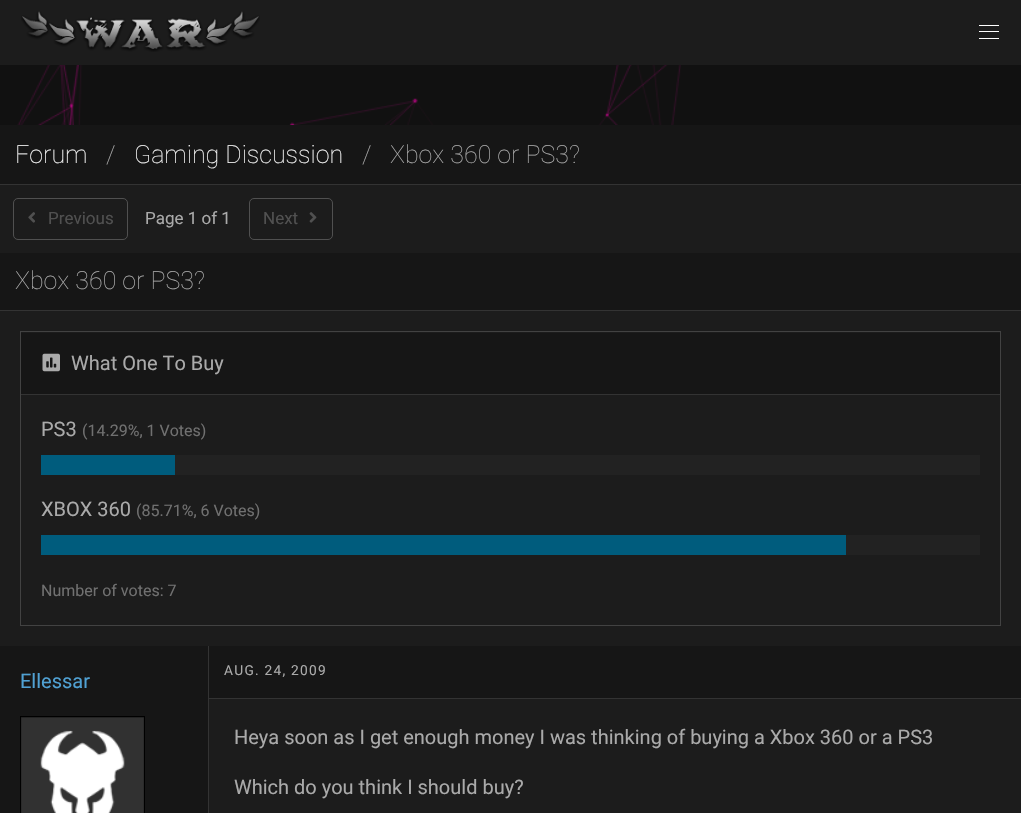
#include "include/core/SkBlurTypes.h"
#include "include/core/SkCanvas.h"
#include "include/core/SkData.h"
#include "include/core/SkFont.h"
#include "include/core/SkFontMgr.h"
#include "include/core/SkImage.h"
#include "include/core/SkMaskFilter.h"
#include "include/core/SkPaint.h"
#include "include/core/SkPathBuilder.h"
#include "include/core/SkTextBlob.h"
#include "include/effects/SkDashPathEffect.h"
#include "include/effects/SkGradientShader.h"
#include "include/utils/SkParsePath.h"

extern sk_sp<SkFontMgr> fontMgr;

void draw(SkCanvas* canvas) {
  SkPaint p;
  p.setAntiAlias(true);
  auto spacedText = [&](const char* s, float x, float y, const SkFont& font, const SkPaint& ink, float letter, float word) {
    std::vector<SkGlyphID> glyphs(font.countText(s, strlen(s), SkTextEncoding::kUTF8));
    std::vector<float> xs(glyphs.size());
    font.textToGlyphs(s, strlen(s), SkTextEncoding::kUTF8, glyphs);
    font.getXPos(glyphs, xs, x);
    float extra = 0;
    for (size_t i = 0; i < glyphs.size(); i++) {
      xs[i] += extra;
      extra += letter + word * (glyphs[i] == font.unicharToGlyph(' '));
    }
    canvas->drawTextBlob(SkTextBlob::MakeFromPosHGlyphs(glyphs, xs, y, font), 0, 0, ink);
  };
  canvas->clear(SkColorSetRGB(17, 17, 17));
  p.setColor(SkColorSetRGB(28, 28, 28));
  canvas->drawRect(SkRect::MakeLTRB(0, 0, 1021, 65), p);
  canvas->drawImageRect(SkImages::DeferredFromEncodedData(SkData::MakeFromFileName("images/1.png")), SkRect::MakeLTRB(21, 11, 260, 52), SkSamplingOptions());
  p.setColor(SK_ColorWHITE);
  canvas->drawRect(SkRect::MakeLTRB(979, 25, 999, 26), p);
  canvas->drawRect(SkRect::MakeLTRB(979, 31, 999, 32), p);
  canvas->drawRect(SkRect::MakeLTRB(979, 38, 999, 39), p);
  canvas->drawImageRect(SkImages::DeferredFromEncodedData(SkData::MakeFromFileName("images/2.png")), SkRect::MakeLTRB(17, 65, 681, 125), SkSamplingOptions());
  p.setColor(SkColorSetRGB(28, 28, 28));
  canvas->drawRect(SkRect::MakeLTRB(0, 185, 1021, 813), p);
  p.setColor(SkColorSetRGB(22, 22, 22));
  canvas->drawRect(SkRect::MakeLTRB(0, 125, 1021, 184), p);
  p.setColor(SkColorSetRGB(51, 51, 51));
  canvas->drawRect(SkRect::MakeLTRB(0, 184, 1021, 185), p);
  p.setStyle(SkPaint::kStroke_Style);
  p.setStrokeWidth(1);
  p.setColor(SkColorSetRGB(80, 80, 80));
  canvas->drawRoundRect(SkRect::MakeLTRB(13.5f, 198.5f, 127.5f, 239.5f), 4.5f, 4.5f, p);
  canvas->drawImageRect(SkImages::DeferredFromEncodedData(SkData::MakeFromFileName("images/3.png")), SkRect::MakeLTRB(28, 212, 35, 223), SkSamplingOptions());
  canvas->drawRoundRect(SkRect::MakeLTRB(249.5f, 198.5f, 332.5f, 239.5f), 4.5f, 4.5f, p);
  canvas->drawImageRect(SkImages::DeferredFromEncodedData(SkData::MakeFromFileName("images/4.png")), SkRect::MakeLTRB(309, 212, 317, 223), SkSamplingOptions());
  p.setStyle(SkPaint::kFill_Style);
  p.setColor(SkColorSetRGB(22, 22, 22));
  canvas->drawRect(SkRect::MakeLTRB(0, 253, 1021, 310), p);
  p.setColor(SkColorSetRGB(51, 51, 51));
  canvas->drawRect(SkRect::MakeLTRB(0, 310, 1021, 311), p);
  p.setStyle(SkPaint::kStroke_Style);
  p.setColor(SkColorSetRGB(66, 66, 66));
  canvas->drawRect(SkRect::MakeLTRB(20.5f, 331.5f, 1000.5f, 625.5f), p);
  p.setStyle(SkPaint::kFill_Style);
  p.setColor(SkColorSetRGB(22, 22, 22));
  canvas->drawRect(SkRect::MakeLTRB(21, 333, 1000, 394), p);
  p.setColor(SkColorSetRGB(51, 51, 51));
  canvas->drawRect(SkRect::MakeLTRB(21, 394, 1000, 395), p);
  canvas->drawImageRect(SkImages::DeferredFromEncodedData(SkData::MakeFromFileName("images/5.png")), SkRect::MakeLTRB(42, 353, 60, 372), SkSamplingOptions());
  p.setColor(SkColorSetRGB(34, 34, 34));
  canvas->drawRect(SkRect::MakeLTRB(175, 455, 980, 475), p);
  p.setColor(SkColorSetRGB(0, 92, 125));
  canvas->drawRect(SkRect::MakeLTRB(41, 455, 175, 475), p);
  p.setColor(SkColorSetRGB(34, 34, 34));
  canvas->drawRect(SkRect::MakeLTRB(846, 535, 980, 555), p);
  p.setColor(SkColorSetRGB(0, 92, 125));
  canvas->drawRect(SkRect::MakeLTRB(41, 535, 846, 555), p);
  p.setColor(SkColorSetRGB(22, 22, 22));
  canvas->drawRect(SkRect::MakeLTRB(0, 646, 208, 813), p);
  p.setColor(SkColorSetRGB(51, 51, 51));
  canvas->drawRect(SkRect::MakeLTRB(208, 646, 209, 813), p);
  p.setStyle(SkPaint::kStroke_Style);
  p.setColor(SK_ColorBLACK);
  canvas->drawRect(SkRect::MakeLTRB(20.5f, 716.5f, 144.5f, 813.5f), p);
  canvas->drawImageRect(SkImages::DeferredFromEncodedData(SkData::MakeFromFileName("images/6.png")), SkRect::MakeLTRB(21, 717, 144, 813), SkSamplingOptions());
  p.setStyle(SkPaint::kFill_Style);
  p.setColor(SkColorSetRGB(22, 22, 22));
  canvas->drawRect(SkRect::MakeLTRB(209, 646, 1021, 698), p);
  p.setColor(SkColorSetRGB(51, 51, 51));
  canvas->drawRect(SkRect::MakeLTRB(209, 698, 1021, 699), p);
  SkFont font1(fontMgr->matchFamilyStyle("Roboto", SkFontStyle(100, SkFontStyle::kNormal_Width, SkFontStyle::kUpright_Slant)), 25);
  font1.setSubpixel(true);
  p.setColor(SkColorSetRGB(250, 250, 250));
  canvas->drawString("Forum", 15, 163, font1, p);
  p.setColor(SkColorSetRGB(170, 170, 170));
  canvas->drawString("/", 106, 163, font1, p);
  p.setColor(SkColorSetRGB(250, 250, 250));
  canvas->drawString("Gaming Discussion", 134, 163, font1, p);
  p.setColor(SkColorSetRGB(170, 170, 170));
  canvas->drawString("/", 362, 163, font1, p);
  canvas->drawString("Xbox 360 or PS3?", 390, 163, font1, p);
  SkFont font2(fontMgr->matchFamilyStyle("Roboto", SkFontStyle::Normal()), 17);
  font2.setSubpixel(true);
  p.setColor(SkColorSetRGB(80, 80, 80));
  canvas->drawString("Previous", 48, 224, font2, p);
  p.setColor(SkColorSetRGB(170, 170, 170));
  canvas->drawString("Page 1 of 1", 145, 224, font2, p);
  p.setColor(SkColorSetRGB(80, 80, 80));
  canvas->drawString("Next", 263, 224, font2, p);
  p.setColor(SkColorSetRGB(170, 170, 170));
  canvas->drawString("Xbox 360 or PS3?", 15, 289, font1, p);
  SkFont font3(fontMgr->matchFamilyStyle("Roboto", SkFontStyle::Normal()), 20);
  font3.setSubpixel(true);
  canvas->drawString("What One To Buy", 71, 370, font3, p);
  canvas->drawString("PS3", 41, 436, font3, p);
  SkFont font4(fontMgr->matchFamilyStyle("Roboto", SkFontStyle::Normal()), 16);
  font4.setSubpixel(true);
  p.setColor(SkColorSetRGB(112, 112, 112));
  canvas->drawString("(14.29%, 1 Votes)", 82, 436, font4, p);
  p.setColor(SkColorSetRGB(170, 170, 170));
  canvas->drawString("XBOX 360", 41, 516, font3, p);
  p.setColor(SkColorSetRGB(112, 112, 112));
  canvas->drawString("(85.71%, 6 Votes)", 136, 516, font4, p);
  canvas->drawString("Number of votes: 7", 41, 596, font4, p);
  p.setColor(SkColorSetRGB(80, 161, 211));
  canvas->drawString("Ellessar", 20, 688, font3, p);
  SkFont font5(fontMgr->matchFamilyStyle("Roboto", SkFontStyle::Normal()), 13.75f);
  font5.setSubpixel(true);
  p.setColor(SkColorSetRGB(170, 170, 170));
  spacedText("AUG. 24, 2009", 224, 675, font5, p, 1.25f, 0);
  canvas->drawString("Heya soon as I get enough money I was thinking of buying a Xbox 360 or a PS3", 234, 744, font3, p);
  canvas->drawString("Which do you think I should buy?", 234, 794, font3, p);
}
